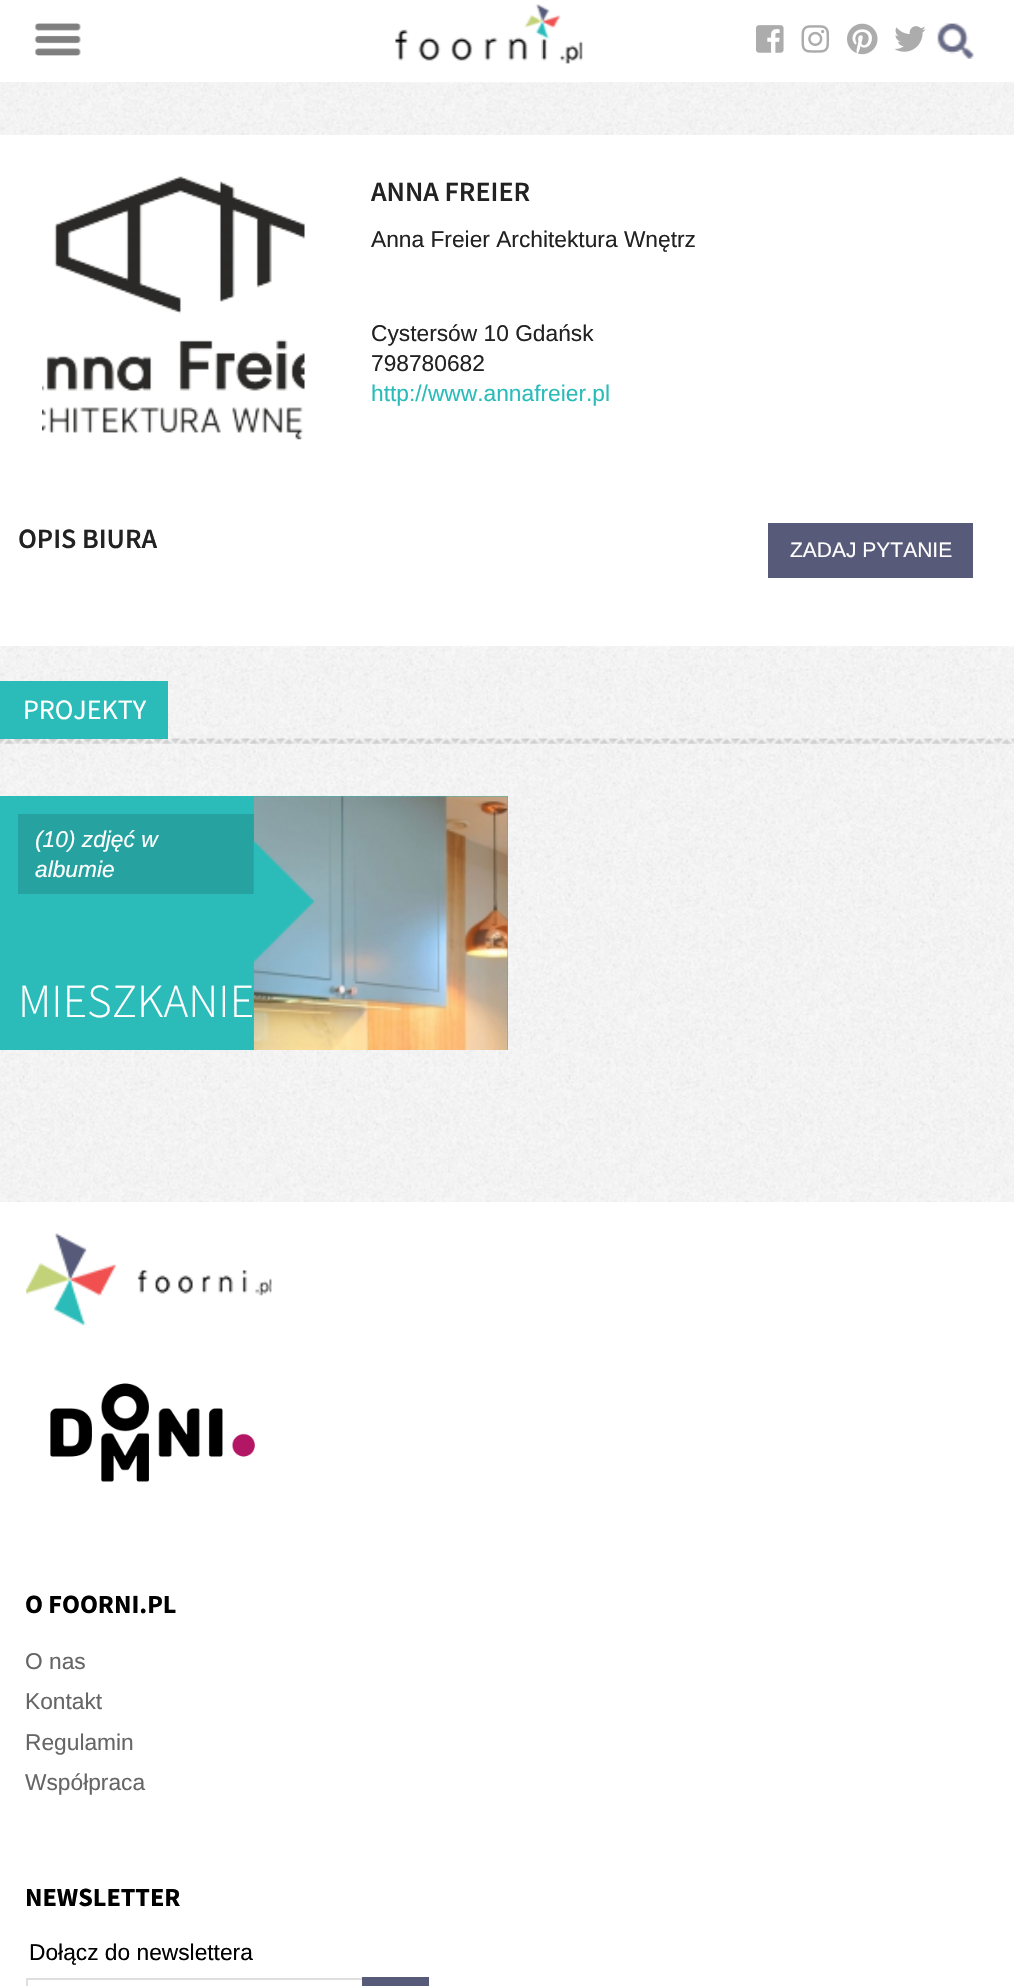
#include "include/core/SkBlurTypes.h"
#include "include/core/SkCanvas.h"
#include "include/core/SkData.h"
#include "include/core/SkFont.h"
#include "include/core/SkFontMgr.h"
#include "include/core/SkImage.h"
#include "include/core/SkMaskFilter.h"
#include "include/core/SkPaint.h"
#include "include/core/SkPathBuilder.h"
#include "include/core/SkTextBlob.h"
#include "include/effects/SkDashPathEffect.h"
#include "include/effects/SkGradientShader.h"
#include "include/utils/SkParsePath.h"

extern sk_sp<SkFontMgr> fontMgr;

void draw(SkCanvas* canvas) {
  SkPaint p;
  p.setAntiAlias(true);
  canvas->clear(SK_ColorWHITE);
  canvas->drawImageRect(SkImages::DeferredFromEncodedData(SkData::MakeFromFileName("images/1.png")), SkRect::MakeLTRB(0, 82, 1014, 1202), SkSamplingOptions());
  canvas->drawImageRect(SkImages::DeferredFromEncodedData(SkData::MakeFromFileName("images/2.png")), SkRect::MakeLTRB(34, 23, 81, 56), SkSamplingOptions());
  canvas->drawImageRect(SkImages::DeferredFromEncodedData(SkData::MakeFromFileName("images/3.png")), SkRect::MakeLTRB(395, 4, 583, 83), SkSamplingOptions());
  canvas->drawImageRect(SkImages::DeferredFromEncodedData(SkData::MakeFromFileName("images/4.png")), SkRect::MakeLTRB(756, 25, 784, 53), SkSamplingOptions());
  canvas->drawImageRect(SkImages::DeferredFromEncodedData(SkData::MakeFromFileName("images/5.png")), SkRect::MakeLTRB(801, 25, 830, 53), SkSamplingOptions());
  canvas->drawImageRect(SkImages::DeferredFromEncodedData(SkData::MakeFromFileName("images/6.png")), SkRect::MakeLTRB(847, 23, 878, 55), SkSamplingOptions());
  canvas->drawImageRect(SkImages::DeferredFromEncodedData(SkData::MakeFromFileName("images/7.png")), SkRect::MakeLTRB(894, 26, 926, 52), SkSamplingOptions());
  canvas->drawImageRect(SkImages::DeferredFromEncodedData(SkData::MakeFromFileName("images/8.png")), SkRect::MakeLTRB(937, 23, 974, 59), SkSamplingOptions());
  p.setColor(SK_ColorWHITE);
  canvas->drawRect(SkRect::MakeLTRB(0, 135, 1014, 646), p);
  canvas->drawImageRect(SkImages::DeferredFromEncodedData(SkData::MakeFromFileName("images/9.png")), SkRect::MakeLTRB(42, 176, 305, 440), SkSamplingOptions());
  p.setColor(SkColorSetRGB(87, 90, 120));
  canvas->drawRect(SkRect::MakeLTRB(768, 523, 973, 578), p);
  canvas->drawImageRect(SkImages::DeferredFromEncodedData(SkData::MakeFromFileName("images/10.png")), SkRect::MakeLTRB(0, 738, 1014, 744), SkSamplingOptions());
  p.setColor(SkColorSetRGB(43, 188, 185));
  canvas->drawRect(SkRect::MakeLTRB(0, 681, 168, 739), p);
  canvas->drawRect(SkRect::MakeLTRB(0, 796, 508, 1050), p);
  p.setColor(SkColorSetRGB(38, 162, 160));
  canvas->drawRect(SkRect::MakeLTRB(18, 814, 254, 894), p);
  canvas->drawImageRect(SkImages::DeferredFromEncodedData(SkData::MakeFromFileName("images/11.png")), SkRect::MakeLTRB(253, 796, 508, 1050), SkSamplingOptions());
  canvas->drawImageRect(SkImages::DeferredFromEncodedData(SkData::MakeFromFileName("images/12.png")), SkRect::MakeLTRB(253, 840, 316, 963), SkSamplingOptions());
  canvas->drawImageRect(SkImages::DeferredFromEncodedData(SkData::MakeFromFileName("images/13.png")), SkRect::MakeLTRB(26, 1233, 272, 1326), SkSamplingOptions());
  canvas->drawImageRect(SkImages::DeferredFromEncodedData(SkData::MakeFromFileName("images/14.png")), SkRect::MakeLTRB(50, 1383, 255, 1482), SkSamplingOptions());
  p.setStyle(SkPaint::kStroke_Style);
  p.setStrokeWidth(2);
  p.setColor(SkColorSetRGB(223, 223, 223));
  canvas->drawRect(SkRect::MakeLTRB(27, 1979, 428, 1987), p);
  p.setStyle(SkPaint::kFill_Style);
  p.setColor(SkColorSetRGB(87, 90, 120));
  canvas->drawRect(SkRect::MakeLTRB(362, 1977, 429, 1986), p);
  SkFont font1(fontMgr->matchFamilyStyle("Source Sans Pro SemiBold", SkFontStyle(600, SkFontStyle::kNormal_Width, SkFontStyle::kUpright_Slant)), 28);
  font1.setSubpixel(true);
  p.setColor(SkColorSetRGB(34, 34, 34));
  canvas->drawString("ANNA FREIER", 371, 201, font1, p);
  SkFont font2(fontMgr->matchFamilyStyle("Arimo", SkFontStyle::Normal()), 22.75f);
  font2.setSubpixel(true);
  canvas->drawString("Anna Freier Architektura Wnętrz", 371, 247, font2, p);
  canvas->drawString("Cystersów 10 Gdańsk", 371, 341, font2, p);
  canvas->drawString("798780682", 371, 371, font2, p);
  p.setColor(SkColorSetRGB(43, 188, 185));
  canvas->drawString("http://www.annafreier.pl", 371, 401, font2, p);
  p.setColor(SkColorSetRGB(34, 34, 34));
  canvas->drawString("OPIS BIURA", 18, 548, font1, p);
  SkFont font3(fontMgr->matchFamilyStyle("Arimo", SkFontStyle::Normal()), 21);
  font3.setSubpixel(true);
  p.setColor(SK_ColorWHITE);
  canvas->drawString("ZADAJ PYTANIE", 790, 557, font3, p);
  SkFont font4(fontMgr->matchFamilyStyle("Source Sans Pro", SkFontStyle::Normal()), 28);
  font4.setSubpixel(true);
  canvas->drawString("PROJEKTY", 23, 719, font4, p);
  SkFont font5(fontMgr->matchFamilyStyle("Arimo", SkFontStyle::Italic()), 22.75f);
  font5.setSubpixel(true);
  canvas->drawString("(10) zdjęć w", 35, 847, font5, p);
  canvas->drawString("albumie", 35, 877, font5, p);
  SkFont font6(fontMgr->matchFamilyStyle("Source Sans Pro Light", SkFontStyle(300, SkFontStyle::kNormal_Width, SkFontStyle::kUpright_Slant)), 47.25f);
  font6.setSubpixel(true);
  canvas->drawString("MIESZKANIE", 18, 1017, font6, p);
  SkFont font7(fontMgr->matchFamilyStyle("Source Sans Pro", SkFontStyle::Bold()), 26.25f);
  font7.setSubpixel(true);
  p.setColor(SK_ColorBLACK);
  canvas->drawString("O FOORNI.PL", 25, 1613, font7, p);
  p.setColor(SkColorSetRGB(102, 102, 102));
  canvas->drawString("O nas", 25, 1669, font2, p);
  canvas->drawString("Kontakt", 25, 1709, font2, p);
  canvas->drawString("Regulamin", 25, 1750, font2, p);
  canvas->drawString("Współpraca", 25, 1790, font2, p);
  p.setColor(SK_ColorBLACK);
  canvas->drawString("NEWSLETTER", 25, 1906, font7, p);
  canvas->drawString("Dołącz do newslettera", 29, 1960, font2, p);
}
